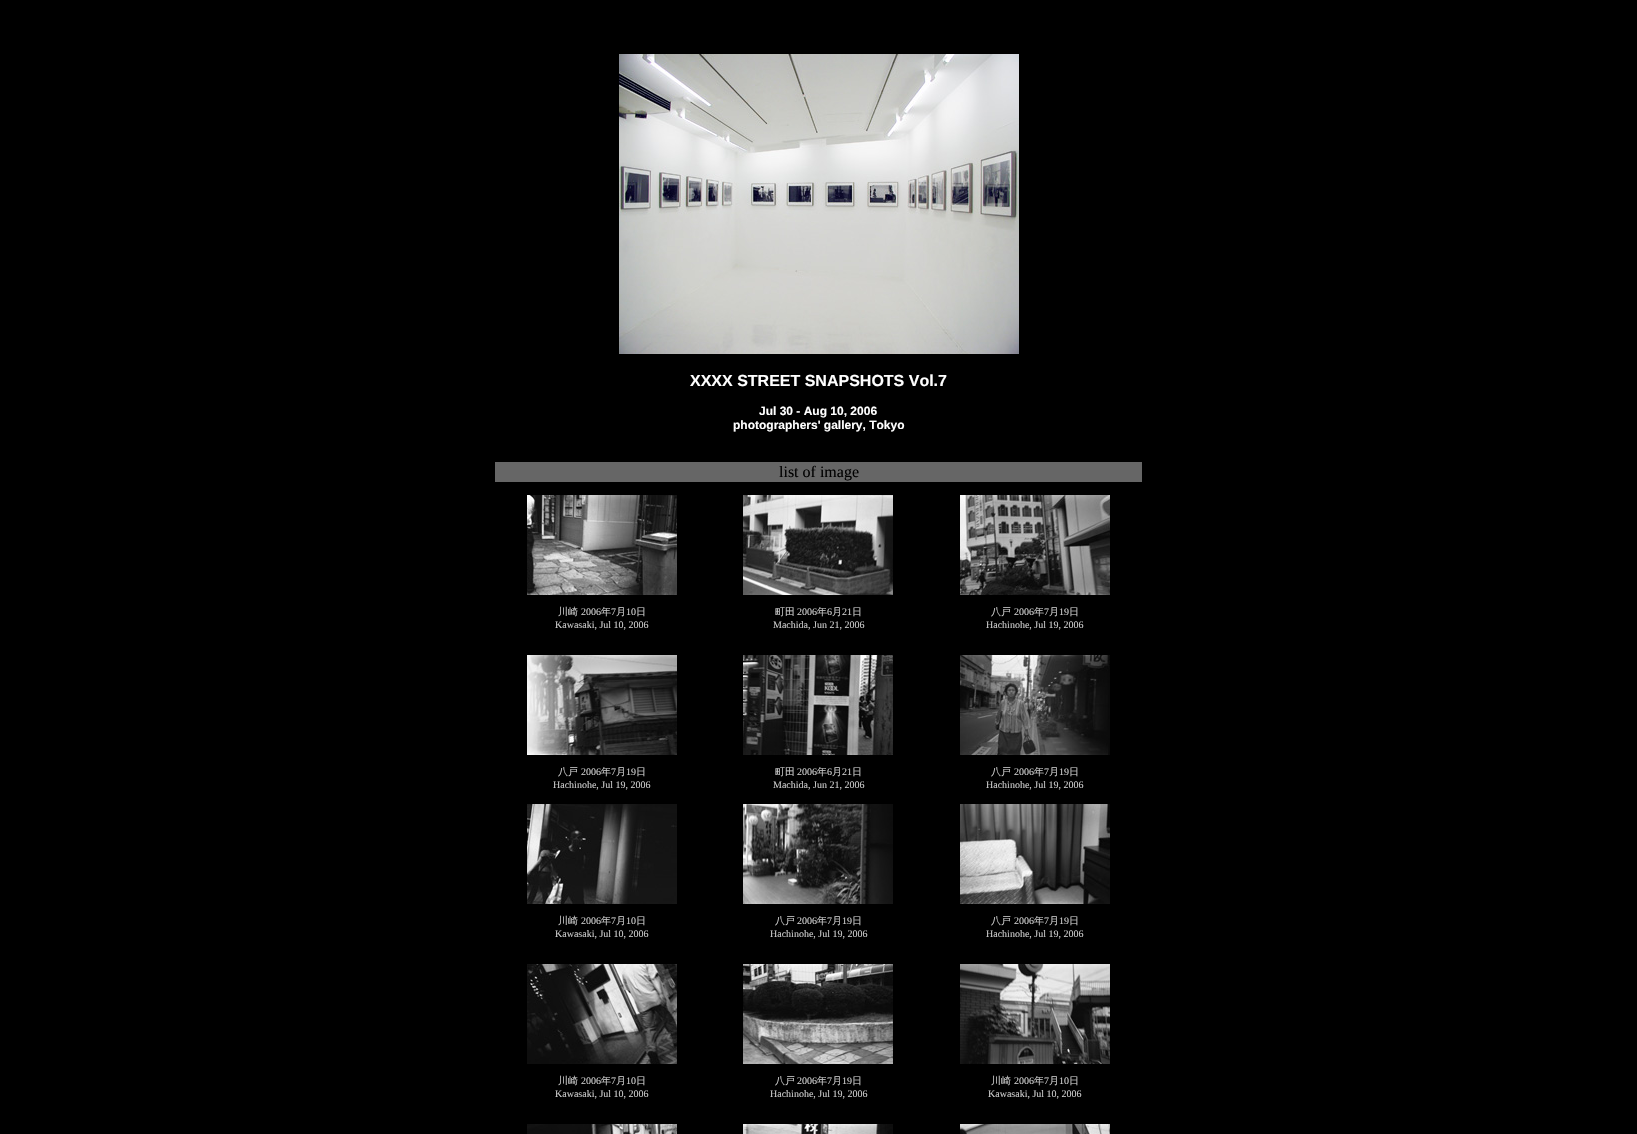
#include "include/core/SkBlurTypes.h"
#include "include/core/SkCanvas.h"
#include "include/core/SkData.h"
#include "include/core/SkFont.h"
#include "include/core/SkFontMgr.h"
#include "include/core/SkImage.h"
#include "include/core/SkMaskFilter.h"
#include "include/core/SkPaint.h"
#include "include/core/SkPathBuilder.h"
#include "include/core/SkTextBlob.h"
#include "include/effects/SkDashPathEffect.h"
#include "include/effects/SkGradientShader.h"
#include "include/utils/SkParsePath.h"

extern sk_sp<SkFontMgr> fontMgr;

void draw(SkCanvas* canvas) {
  SkPaint p;
  p.setAntiAlias(true);
  canvas->clear(SK_ColorBLACK);
  canvas->drawImageRect(SkImages::DeferredFromEncodedData(SkData::MakeFromFileName("images/1.png")), SkRect::MakeLTRB(619, 54, 1019, 354), SkSamplingOptions());
  p.setColor(SkColorSetRGB(102, 102, 102));
  canvas->drawRect(SkRect::MakeLTRB(495, 462, 1142, 482), p);
  canvas->drawImageRect(SkImages::DeferredFromEncodedData(SkData::MakeFromFileName("images/2.png")), SkRect::MakeLTRB(527, 495, 677, 595), SkSamplingOptions());
  canvas->drawImageRect(SkImages::DeferredFromEncodedData(SkData::MakeFromFileName("images/3.png")), SkRect::MakeLTRB(743, 495, 893, 595), SkSamplingOptions());
  canvas->drawImageRect(SkImages::DeferredFromEncodedData(SkData::MakeFromFileName("images/4.png")), SkRect::MakeLTRB(960, 495, 1110, 595), SkSamplingOptions());
  canvas->drawImageRect(SkImages::DeferredFromEncodedData(SkData::MakeFromFileName("images/5.png")), SkRect::MakeLTRB(527, 655, 677, 755), SkSamplingOptions());
  canvas->drawImageRect(SkImages::DeferredFromEncodedData(SkData::MakeFromFileName("images/6.png")), SkRect::MakeLTRB(743, 655, 893, 755), SkSamplingOptions());
  canvas->drawImageRect(SkImages::DeferredFromEncodedData(SkData::MakeFromFileName("images/7.png")), SkRect::MakeLTRB(960, 655, 1110, 755), SkSamplingOptions());
  canvas->drawImageRect(SkImages::DeferredFromEncodedData(SkData::MakeFromFileName("images/8.png")), SkRect::MakeLTRB(527, 804, 677, 904), SkSamplingOptions());
  canvas->drawImageRect(SkImages::DeferredFromEncodedData(SkData::MakeFromFileName("images/9.png")), SkRect::MakeLTRB(743, 804, 893, 904), SkSamplingOptions());
  canvas->drawImageRect(SkImages::DeferredFromEncodedData(SkData::MakeFromFileName("images/10.png")), SkRect::MakeLTRB(960, 804, 1110, 904), SkSamplingOptions());
  canvas->drawImageRect(SkImages::DeferredFromEncodedData(SkData::MakeFromFileName("images/11.png")), SkRect::MakeLTRB(527, 964, 677, 1064), SkSamplingOptions());
  canvas->drawImageRect(SkImages::DeferredFromEncodedData(SkData::MakeFromFileName("images/12.png")), SkRect::MakeLTRB(743, 964, 893, 1064), SkSamplingOptions());
  canvas->drawImageRect(SkImages::DeferredFromEncodedData(SkData::MakeFromFileName("images/13.png")), SkRect::MakeLTRB(960, 964, 1110, 1064), SkSamplingOptions());
  canvas->drawImageRect(SkImages::DeferredFromEncodedData(SkData::MakeFromFileName("images/14.png")), SkRect::MakeLTRB(527, 1124, 677, 1134), SkSamplingOptions());
  canvas->drawImageRect(SkImages::DeferredFromEncodedData(SkData::MakeFromFileName("images/15.png")), SkRect::MakeLTRB(743, 1124, 893, 1134), SkSamplingOptions());
  canvas->drawImageRect(SkImages::DeferredFromEncodedData(SkData::MakeFromFileName("images/16.png")), SkRect::MakeLTRB(960, 1124, 1110, 1134), SkSamplingOptions());
  SkFont font1(fontMgr->matchFamilyStyle("Liberation Sans", SkFontStyle::Bold()), 16);
  font1.setSubpixel(true);
  p.setColor(SK_ColorWHITE);
  canvas->drawString("XXXX STREET SNAPSHOTS Vol.7", 690, 386, font1, p);
  SkFont font2(fontMgr->matchFamilyStyle("Liberation Sans", SkFontStyle::Bold()), 12);
  font2.setSubpixel(true);
  canvas->drawString("Jul 30 - Aug 10, 2006", 759, 415, font2, p);
  canvas->drawString("photographers' gallery, Tokyo", 733, 429, font2, p);
  SkFont font3(fontMgr->matchFamilyStyle("Liberation Serif", SkFontStyle::Normal()), 16);
  font3.setSubpixel(true);
  p.setColor(SK_ColorBLACK);
  canvas->drawString("list of image", 779, 477, font3, p);
  SkFont font4(fontMgr->matchFamilyStyle("WenQuanYi Zen Hei", SkFontStyle(500, SkFontStyle::kNormal_Width, SkFontStyle::kUpright_Slant)), 10);
  font4.setSubpixel(true);
  p.setColor(SkColorSetRGB(204, 204, 204));
  canvas->drawString("川崎", 558, 615, font4, p);
  SkFont font5(fontMgr->matchFamilyStyle("Liberation Serif", SkFontStyle::Normal()), 10);
  font5.setSubpixel(true);
  canvas->drawString("2006", 581, 615, font5, p);
  canvas->drawString("年", 601, 615, font4, p);
  canvas->drawString("7", 611, 615, font5, p);
  canvas->drawString("月", 616, 615, font4, p);
  canvas->drawString("10", 626, 615, font5, p);
  canvas->drawString("日", 636, 615, font4, p);
  canvas->drawString("Kawasaki, Jul 10, 2006", 555, 628, font5, p);
  canvas->drawString("町田", 775, 615, font4, p);
  canvas->drawString("2006", 797, 615, font5, p);
  canvas->drawString("年", 817, 615, font4, p);
  canvas->drawString("6", 827, 615, font5, p);
  canvas->drawString("月", 832, 615, font4, p);
  canvas->drawString("21", 842, 615, font5, p);
  canvas->drawString("日", 852, 615, font4, p);
  canvas->drawString("Machida, Jun 21, 2006", 773, 628, font5, p);
  canvas->drawString("八戸", 991, 615, font4, p);
  canvas->drawString("2006", 1014, 615, font5, p);
  canvas->drawString("年", 1034, 615, font4, p);
  canvas->drawString("7", 1044, 615, font5, p);
  canvas->drawString("月", 1049, 615, font4, p);
  canvas->drawString("19", 1059, 615, font5, p);
  canvas->drawString("日", 1069, 615, font4, p);
  canvas->drawString("Hachinohe, Jul 19, 2006", 986, 628, font5, p);
  canvas->drawString("八戸", 558, 775, font4, p);
  canvas->drawString("2006", 581, 775, font5, p);
  canvas->drawString("年", 601, 775, font4, p);
  canvas->drawString("7", 611, 775, font5, p);
  canvas->drawString("月", 616, 775, font4, p);
  canvas->drawString("19", 626, 775, font5, p);
  canvas->drawString("日", 636, 775, font4, p);
  canvas->drawString("Hachinohe, Jul 19, 2006", 553, 788, font5, p);
  canvas->drawString("町田", 775, 775, font4, p);
  canvas->drawString("2006", 797, 775, font5, p);
  canvas->drawString("年", 817, 775, font4, p);
  canvas->drawString("6", 827, 775, font5, p);
  canvas->drawString("月", 832, 775, font4, p);
  canvas->drawString("21", 842, 775, font5, p);
  canvas->drawString("日", 852, 775, font4, p);
  canvas->drawString("Machida, Jun 21, 2006", 773, 788, font5, p);
  canvas->drawString("八戸", 991, 775, font4, p);
  canvas->drawString("2006", 1014, 775, font5, p);
  canvas->drawString("年", 1034, 775, font4, p);
  canvas->drawString("7", 1044, 775, font5, p);
  canvas->drawString("月", 1049, 775, font4, p);
  canvas->drawString("19", 1059, 775, font5, p);
  canvas->drawString("日", 1069, 775, font4, p);
  canvas->drawString("Hachinohe, Jul 19, 2006", 986, 788, font5, p);
  canvas->drawString("川崎", 558, 924, font4, p);
  canvas->drawString("2006", 581, 924, font5, p);
  canvas->drawString("年", 601, 924, font4, p);
  canvas->drawString("7", 611, 924, font5, p);
  canvas->drawString("月", 616, 924, font4, p);
  canvas->drawString("10", 626, 924, font5, p);
  canvas->drawString("日", 636, 924, font4, p);
  canvas->drawString("Kawasaki, Jul 10, 2006", 555, 937, font5, p);
  canvas->drawString("八戸", 775, 924, font4, p);
  canvas->drawString("2006", 797, 924, font5, p);
  canvas->drawString("年", 817, 924, font4, p);
  canvas->drawString("7", 827, 924, font5, p);
  canvas->drawString("月", 832, 924, font4, p);
  canvas->drawString("19", 842, 924, font5, p);
  canvas->drawString("日", 852, 924, font4, p);
  canvas->drawString("Hachinohe, Jul 19, 2006", 770, 937, font5, p);
  canvas->drawString("八戸", 991, 924, font4, p);
  canvas->drawString("2006", 1014, 924, font5, p);
  canvas->drawString("年", 1034, 924, font4, p);
  canvas->drawString("7", 1044, 924, font5, p);
  canvas->drawString("月", 1049, 924, font4, p);
  canvas->drawString("19", 1059, 924, font5, p);
  canvas->drawString("日", 1069, 924, font4, p);
  canvas->drawString("Hachinohe, Jul 19, 2006", 986, 937, font5, p);
  canvas->drawString("川崎", 558, 1084, font4, p);
  canvas->drawString("2006", 581, 1084, font5, p);
  canvas->drawString("年", 601, 1084, font4, p);
  canvas->drawString("7", 611, 1084, font5, p);
  canvas->drawString("月", 616, 1084, font4, p);
  canvas->drawString("10", 626, 1084, font5, p);
  canvas->drawString("日", 636, 1084, font4, p);
  canvas->drawString("Kawasaki, Jul 10, 2006", 555, 1097, font5, p);
  canvas->drawString("八戸", 775, 1084, font4, p);
  canvas->drawString("2006", 797, 1084, font5, p);
  canvas->drawString("年", 817, 1084, font4, p);
  canvas->drawString("7", 827, 1084, font5, p);
  canvas->drawString("月", 832, 1084, font4, p);
  canvas->drawString("19", 842, 1084, font5, p);
  canvas->drawString("日", 852, 1084, font4, p);
  canvas->drawString("Hachinohe, Jul 19, 2006", 770, 1097, font5, p);
  canvas->drawString("川崎", 991, 1084, font4, p);
  canvas->drawString("2006", 1014, 1084, font5, p);
  canvas->drawString("年", 1034, 1084, font4, p);
  canvas->drawString("7", 1044, 1084, font5, p);
  canvas->drawString("月", 1049, 1084, font4, p);
  canvas->drawString("10", 1059, 1084, font5, p);
  canvas->drawString("日", 1069, 1084, font4, p);
  canvas->drawString("Kawasaki, Jul 10, 2006", 988, 1097, font5, p);
}
